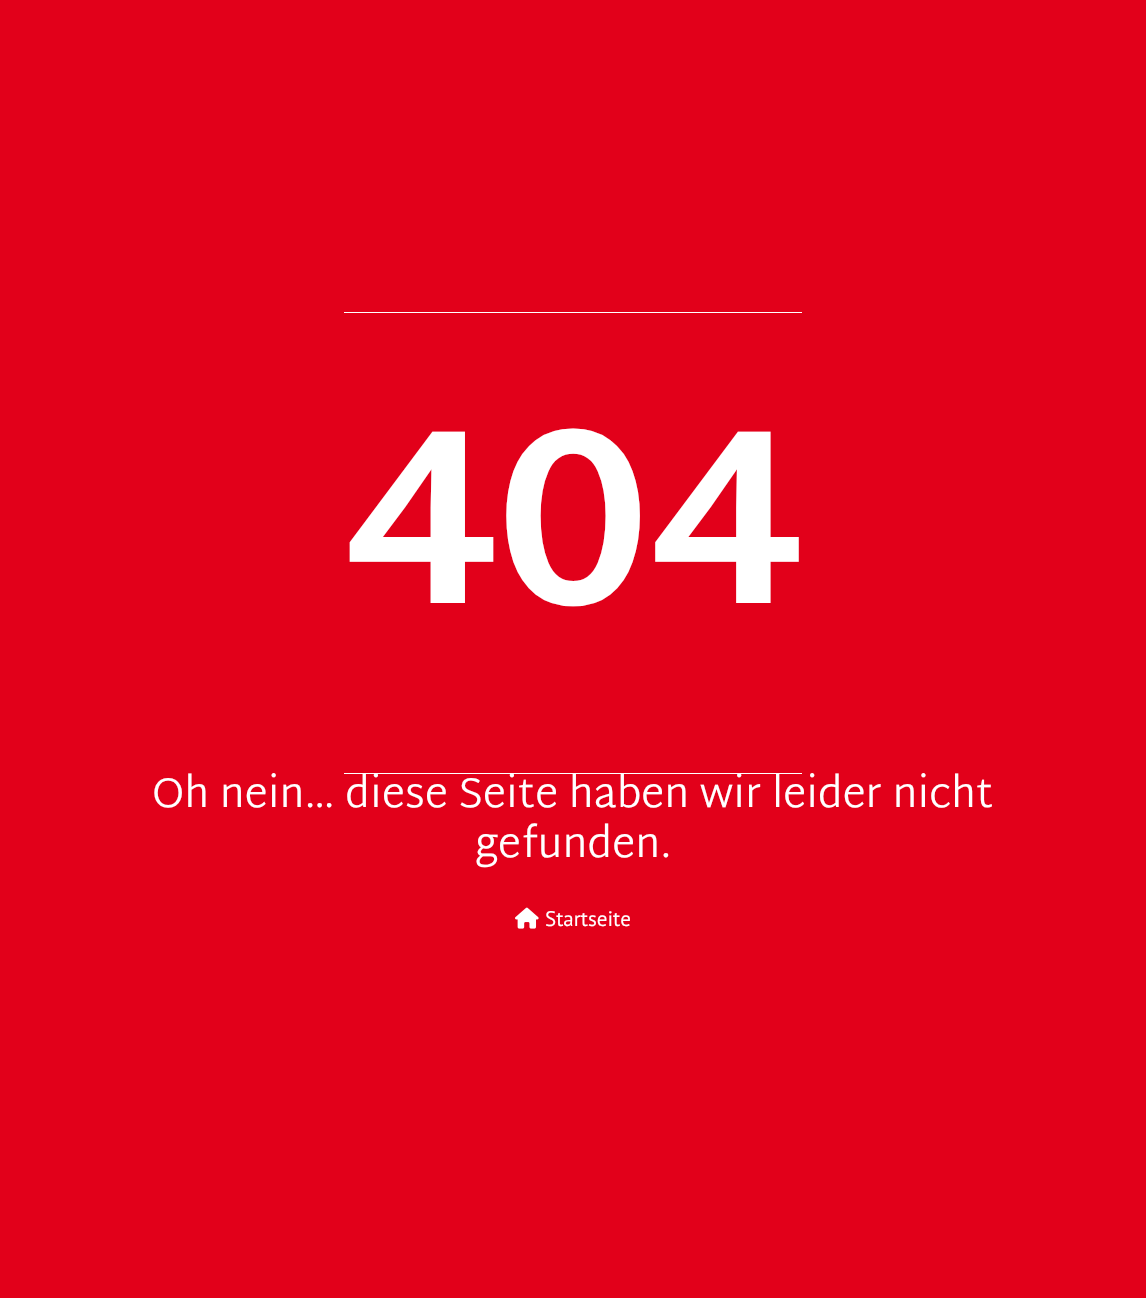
#include "include/core/SkBlurTypes.h"
#include "include/core/SkCanvas.h"
#include "include/core/SkData.h"
#include "include/core/SkFont.h"
#include "include/core/SkFontMgr.h"
#include "include/core/SkImage.h"
#include "include/core/SkMaskFilter.h"
#include "include/core/SkPaint.h"
#include "include/core/SkPathBuilder.h"
#include "include/core/SkTextBlob.h"
#include "include/effects/SkDashPathEffect.h"
#include "include/effects/SkGradientShader.h"
#include "include/utils/SkParsePath.h"

extern sk_sp<SkFontMgr> fontMgr;

void draw(SkCanvas* canvas) {
  SkPaint p;
  p.setAntiAlias(true);
  canvas->clear(SkColorSetRGB(226, 0, 26));
  p.setColor(SK_ColorWHITE);
  canvas->drawRect(SkRect::MakeLTRB(344, 312, 802, 313), p);
  canvas->drawRect(SkRect::MakeLTRB(344, 773, 802, 774), p);
  canvas->drawImageRect(SkImages::DeferredFromEncodedData(SkData::MakeFromFileName("images/1.png")), SkRect::MakeLTRB(515, 907, 539, 929), SkSamplingOptions());
  SkFont font1(fontMgr->matchFamilyStyle("Martel Sans", SkFontStyle::Bold()), 252);
  font1.setSubpixel(true);
  canvas->drawString("404", 344, 603, font1, p);
  SkFont font2(fontMgr->matchFamilyStyle("Martel Sans", SkFontStyle(300, SkFontStyle::kNormal_Width, SkFontStyle::kUpright_Slant)), 42);
  font2.setSubpixel(true);
  canvas->drawString("Oh nein… diese Seite haben wir leider nicht", 152, 807, font2, p);
  canvas->drawString("gefunden.", 475, 857, font2, p);
  SkFont font3(fontMgr->matchFamilyStyle("PT Sans", SkFontStyle::Normal()), 21);
  font3.setSubpixel(true);
  canvas->drawString("Startseite", 545, 926, font3, p);
}
